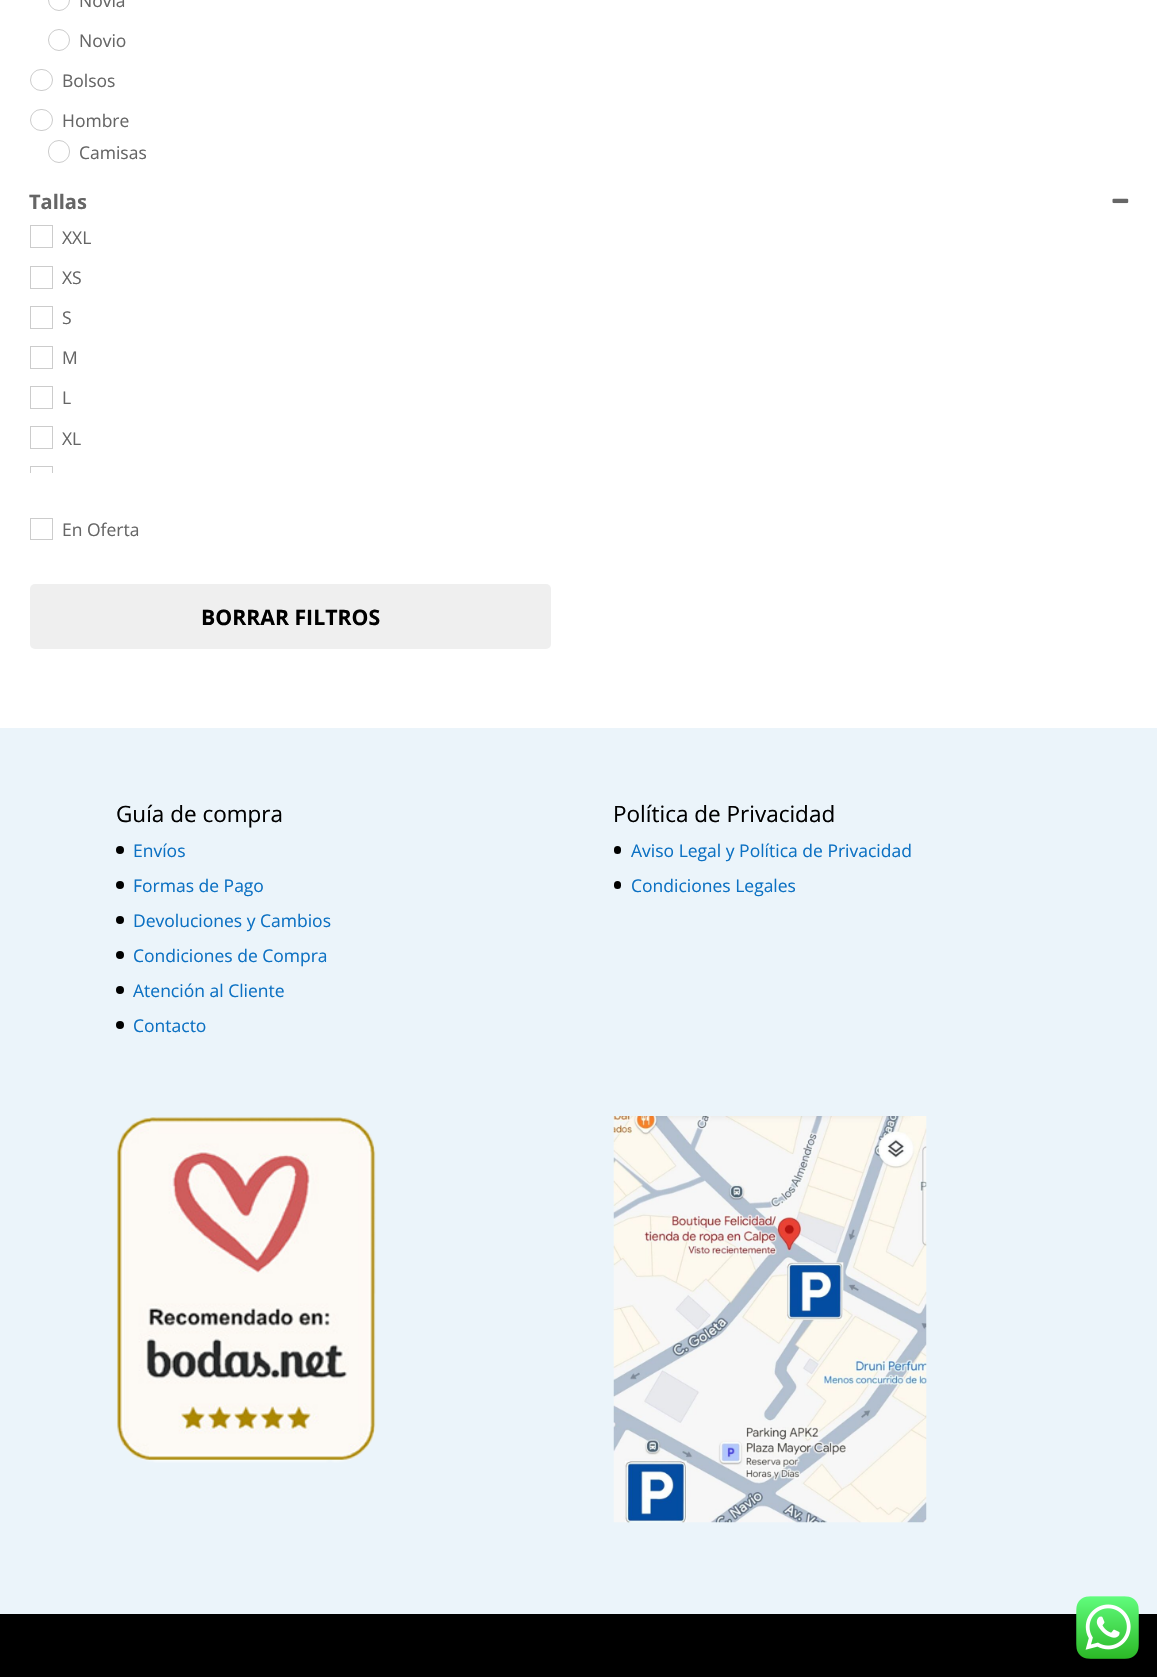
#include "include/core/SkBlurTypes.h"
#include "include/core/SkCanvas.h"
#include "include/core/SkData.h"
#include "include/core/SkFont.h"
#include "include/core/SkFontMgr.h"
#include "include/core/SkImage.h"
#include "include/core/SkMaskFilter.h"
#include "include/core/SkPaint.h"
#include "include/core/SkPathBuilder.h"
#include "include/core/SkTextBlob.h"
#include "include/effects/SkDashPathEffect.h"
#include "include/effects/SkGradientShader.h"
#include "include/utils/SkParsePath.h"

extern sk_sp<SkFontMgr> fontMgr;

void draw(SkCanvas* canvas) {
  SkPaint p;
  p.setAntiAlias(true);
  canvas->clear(SK_ColorWHITE);
  p.setStyle(SkPaint::kStroke_Style);
  p.setStrokeWidth(1);
  p.setColor(SkColorSetRGB(204, 204, 204));
  canvas->drawCircle(59, 0, 10.5f, p);
  canvas->drawCircle(59, 40, 10.5f, p);
  canvas->drawRoundRect(SkRect::MakeLTRB(30.5f, 69.5f, 52.5f, 90.5f), 10.5f, 10.5f, p);
  canvas->drawRoundRect(SkRect::MakeLTRB(30.5f, 109.5f, 52.5f, 130.5f), 10.5f, 10.5f, p);
  canvas->drawRoundRect(SkRect::MakeLTRB(48.5f, 140.5f, 69.5f, 162.5f), 10.5f, 10.5f, p);
  canvas->drawImageRect(SkImages::DeferredFromEncodedData(SkData::MakeFromFileName("images/1.png")), SkRect::MakeLTRB(1112, 198, 1129, 204), SkSamplingOptions());
  canvas->drawRect(SkRect::MakeLTRB(30.5f, 225.5f, 52.5f, 247.5f), p);
  canvas->drawRect(SkRect::MakeLTRB(30.5f, 266.5f, 52.5f, 288.5f), p);
  canvas->drawRect(SkRect::MakeLTRB(30.5f, 306.5f, 52.5f, 328.5f), p);
  canvas->drawRect(SkRect::MakeLTRB(30.5f, 346.5f, 52.5f, 368.5f), p);
  canvas->drawRect(SkRect::MakeLTRB(30.5f, 386.5f, 52.5f, 408.5f), p);
  canvas->drawRect(SkRect::MakeLTRB(30.5f, 426.5f, 52.5f, 448.5f), p);
  canvas->save();
  canvas->clipRect(SkRect::MakeLTRB(30, 223, 1128, 473));
  canvas->drawRect(SkRect::MakeLTRB(30.5f, 466.5f, 52.5f, 488.5f), p);
  canvas->restore();
  canvas->drawRect(SkRect::MakeLTRB(30.5f, 518.5f, 52.5f, 539.5f), p);
  p.setStyle(SkPaint::kFill_Style);
  p.setColor(SkColorSetRGB(239, 239, 239));
  canvas->drawRoundRect(SkRect::MakeLTRB(30, 584, 551, 649), 5, 5, p);
  p.setColor(SkColorSetRGB(235, 244, 250));
  canvas->drawRect(SkRect::MakeLTRB(0, 728, 1157, 1614), p);
  p.setColor(SK_ColorBLACK);
  canvas->drawCircle(120, 850, 4, p);
  canvas->drawCircle(120, 885, 4, p);
  canvas->drawCircle(120, 920, 4, p);
  canvas->drawCircle(120, 955, 4, p);
  canvas->drawCircle(120, 990, 4, p);
  canvas->drawCircle(120, 1025, 4, p);
  canvas->drawRoundRect(SkRect::MakeLTRB(614, 846, 621, 854), 3.5f, 3.5f, p);
  canvas->drawRoundRect(SkRect::MakeLTRB(614, 881, 621, 889), 3.5f, 3.5f, p);
  canvas->drawImageRect(SkImages::DeferredFromEncodedData(SkData::MakeFromFileName("images/2.png")), SkRect::MakeLTRB(117, 1116, 376, 1463), SkSamplingOptions());
  canvas->drawImageRect(SkImages::DeferredFromEncodedData(SkData::MakeFromFileName("images/3.png")), SkRect::MakeLTRB(613, 1116, 927, 1523), SkSamplingOptions());
  canvas->drawRect(SkRect::MakeLTRB(0, 1614, 1157, 1677), p);
  canvas->drawImageRect(SkImages::DeferredFromEncodedData(SkData::MakeFromFileName("images/4.png")), SkRect::MakeLTRB(1076, 1596, 1139, 1659), SkSamplingOptions());
  SkFont font1(fontMgr->matchFamilyStyle("Open Sans", SkFontStyle::Normal()), 17.5f);
  font1.setSubpixel(true);
  p.setColor(SkColorSetRGB(102, 102, 102));
  canvas->drawString("Novia", 79, 7, font1, p);
  canvas->drawString("Novio", 79, 47, font1, p);
  canvas->drawString("Bolsos", 62, 87, font1, p);
  canvas->drawString("Hombre", 62, 127, font1, p);
  canvas->drawString("Camisas", 79, 159, font1, p);
  SkFont font2(fontMgr->matchFamilyStyle("Open Sans", SkFontStyle::Bold()), 20);
  font2.setSubpixel(true);
  canvas->drawString("Tallas", 29, 209, font2, p);
  canvas->drawString("XXL", 62, 244, font1, p);
  canvas->drawString("XS", 62, 284, font1, p);
  canvas->drawString("S", 62, 324, font1, p);
  canvas->drawString("M", 62, 364, font1, p);
  canvas->drawString("L", 62, 404, font1, p);
  canvas->drawString("XL", 62, 445, font1, p);
  canvas->drawString("En Oferta", 62, 536, font1, p);
  SkFont font3(fontMgr->matchFamilyStyle("Open Sans", SkFontStyle::Bold()), 21.25f);
  font3.setSubpixel(true);
  p.setColor(SK_ColorBLACK);
  canvas->drawString("BORRAR FILTROS", 201, 625, font3, p);
  SkFont font4(fontMgr->matchFamilyStyle("Open Sans", SkFontStyle::Normal()), 22.5f);
  font4.setSubpixel(true);
  canvas->drawString("Guía de compra", 116, 822, font4, p);
  p.setColor(SkColorSetRGB(12, 113, 195));
  canvas->drawString("Envíos", 133, 857, font1, p);
  canvas->drawString("Formas de Pago", 133, 892, font1, p);
  canvas->drawString("Devoluciones y Cambios", 133, 927, font1, p);
  canvas->drawString("Condiciones de Compra", 133, 962, font1, p);
  canvas->drawString("Atención al Cliente", 133, 997, font1, p);
  canvas->drawString("Contacto", 133, 1032, font1, p);
  p.setColor(SK_ColorBLACK);
  canvas->drawString("Política de Privacidad", 613, 822, font4, p);
  p.setColor(SkColorSetRGB(12, 113, 195));
  canvas->drawString("Aviso Legal y Política de Privacidad", 631, 857, font1, p);
  canvas->drawString("Condiciones Legales", 631, 892, font1, p);
}
